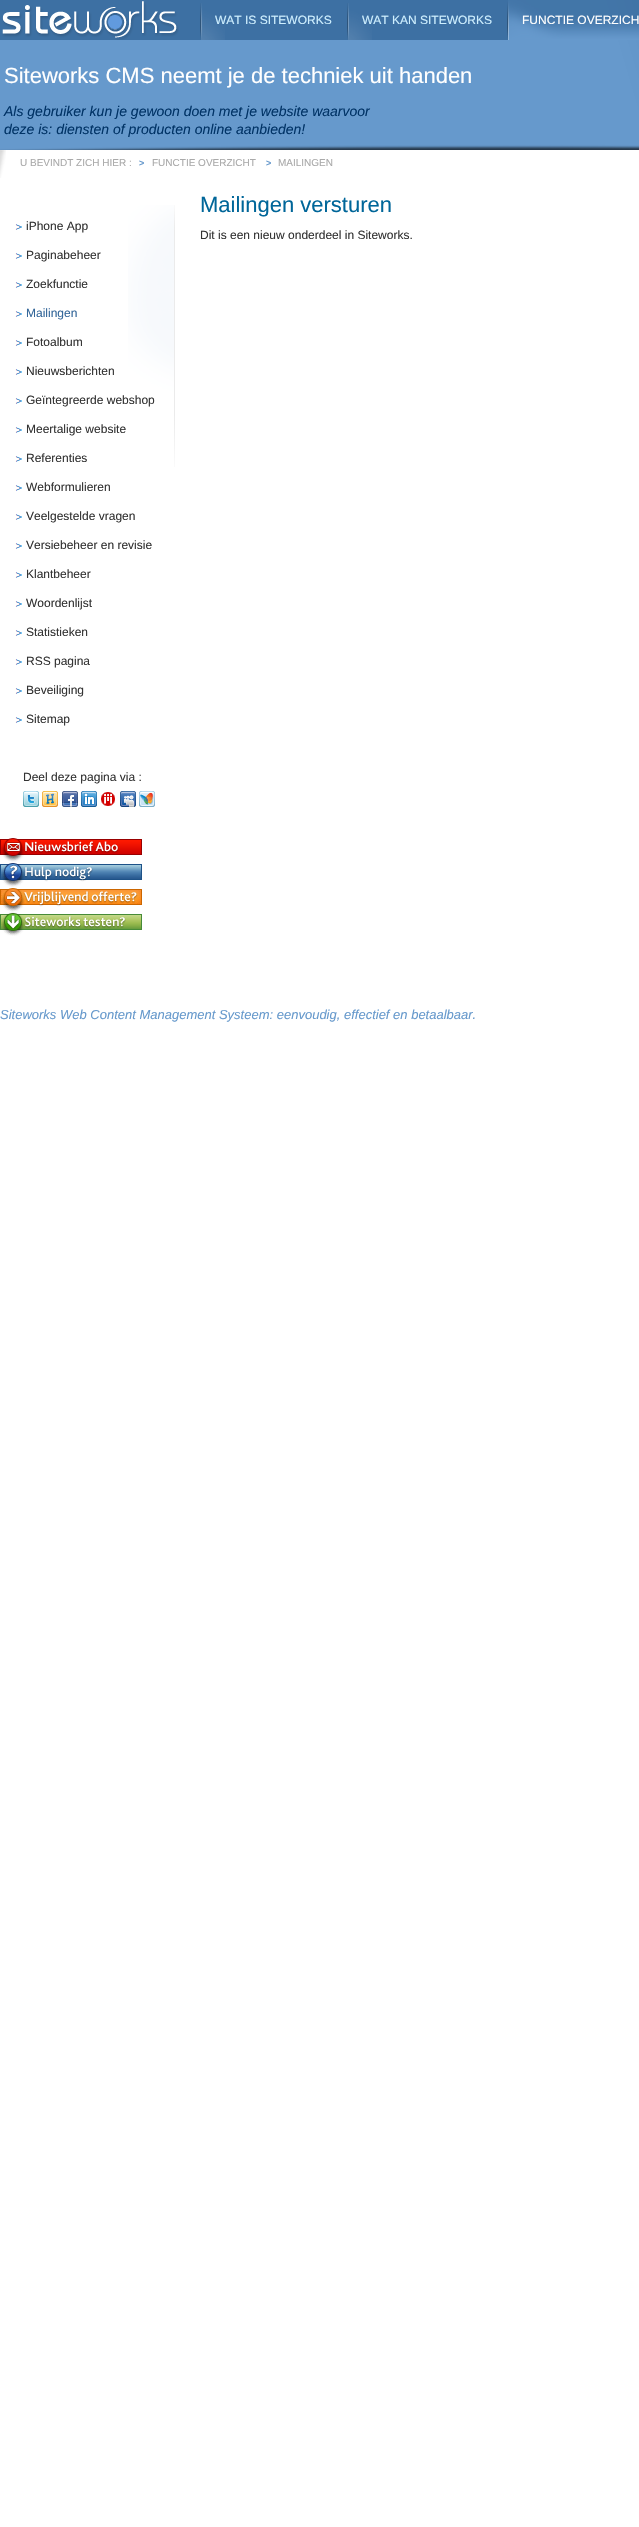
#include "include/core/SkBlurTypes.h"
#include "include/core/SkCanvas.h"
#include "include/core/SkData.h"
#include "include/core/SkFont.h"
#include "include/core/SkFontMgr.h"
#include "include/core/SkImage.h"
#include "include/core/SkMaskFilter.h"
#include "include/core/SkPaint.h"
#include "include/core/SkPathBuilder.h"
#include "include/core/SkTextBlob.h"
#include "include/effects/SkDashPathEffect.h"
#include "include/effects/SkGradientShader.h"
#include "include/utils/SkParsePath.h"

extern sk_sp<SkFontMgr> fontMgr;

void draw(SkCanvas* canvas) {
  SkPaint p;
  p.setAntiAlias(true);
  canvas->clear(SK_ColorWHITE);
  canvas->drawImageRect(SkImages::DeferredFromEncodedData(SkData::MakeFromFileName("images/1.png")), SkRect::MakeLTRB(0, 0, 639, 150), SkSamplingOptions());
  p.setColor(SkColorSetARGB(102, 0, 50, 102));
  canvas->drawRect(SkRect::MakeLTRB(0, 0, 639, 40), p);
  canvas->drawImageRect(SkImages::DeferredFromEncodedData(SkData::MakeFromFileName("images/2.png")), SkRect::MakeLTRB(2, 1, 179, 40), SkSamplingOptions());
  canvas->drawImageRect(SkImages::DeferredFromEncodedData(SkData::MakeFromFileName("images/3.png")), SkRect::MakeLTRB(200, 3, 225, 40), SkSamplingOptions());
  canvas->drawImageRect(SkImages::DeferredFromEncodedData(SkData::MakeFromFileName("images/4.png")), SkRect::MakeLTRB(347, 3, 372, 40), SkSamplingOptions());
  canvas->drawImageRect(SkImages::DeferredFromEncodedData(SkData::MakeFromFileName("images/5.png")), SkRect::MakeLTRB(507, 0, 639, 40), SkSamplingOptions());
  canvas->drawImageRect(SkImages::DeferredFromEncodedData(SkData::MakeFromFileName("images/6.png")), SkRect::MakeLTRB(0, 150, 6, 178), SkSamplingOptions());
  canvas->drawImageRect(SkImages::DeferredFromEncodedData(SkData::MakeFromFileName("images/7.png")), SkRect::MakeLTRB(128, 205, 175, 467), SkSamplingOptions());
  canvas->drawImageRect(SkImages::DeferredFromEncodedData(SkData::MakeFromFileName("images/8.png")), SkRect::MakeLTRB(15, 224, 22, 230), SkSamplingOptions());
  canvas->drawImageRect(SkImages::DeferredFromEncodedData(SkData::MakeFromFileName("images/8.png")), SkRect::MakeLTRB(15, 253, 22, 259), SkSamplingOptions());
  canvas->drawImageRect(SkImages::DeferredFromEncodedData(SkData::MakeFromFileName("images/8.png")), SkRect::MakeLTRB(15, 282, 22, 288), SkSamplingOptions());
  canvas->drawImageRect(SkImages::DeferredFromEncodedData(SkData::MakeFromFileName("images/8.png")), SkRect::MakeLTRB(15, 311, 22, 317), SkSamplingOptions());
  canvas->drawImageRect(SkImages::DeferredFromEncodedData(SkData::MakeFromFileName("images/8.png")), SkRect::MakeLTRB(15, 340, 22, 346), SkSamplingOptions());
  canvas->drawImageRect(SkImages::DeferredFromEncodedData(SkData::MakeFromFileName("images/8.png")), SkRect::MakeLTRB(15, 369, 22, 375), SkSamplingOptions());
  canvas->drawImageRect(SkImages::DeferredFromEncodedData(SkData::MakeFromFileName("images/8.png")), SkRect::MakeLTRB(15, 398, 22, 404), SkSamplingOptions());
  canvas->drawImageRect(SkImages::DeferredFromEncodedData(SkData::MakeFromFileName("images/8.png")), SkRect::MakeLTRB(15, 427, 22, 433), SkSamplingOptions());
  canvas->drawImageRect(SkImages::DeferredFromEncodedData(SkData::MakeFromFileName("images/8.png")), SkRect::MakeLTRB(15, 456, 22, 462), SkSamplingOptions());
  canvas->drawImageRect(SkImages::DeferredFromEncodedData(SkData::MakeFromFileName("images/8.png")), SkRect::MakeLTRB(15, 485, 22, 491), SkSamplingOptions());
  canvas->drawImageRect(SkImages::DeferredFromEncodedData(SkData::MakeFromFileName("images/8.png")), SkRect::MakeLTRB(15, 514, 22, 520), SkSamplingOptions());
  canvas->drawImageRect(SkImages::DeferredFromEncodedData(SkData::MakeFromFileName("images/8.png")), SkRect::MakeLTRB(15, 543, 22, 549), SkSamplingOptions());
  canvas->drawImageRect(SkImages::DeferredFromEncodedData(SkData::MakeFromFileName("images/8.png")), SkRect::MakeLTRB(15, 572, 22, 578), SkSamplingOptions());
  canvas->drawImageRect(SkImages::DeferredFromEncodedData(SkData::MakeFromFileName("images/8.png")), SkRect::MakeLTRB(15, 601, 22, 607), SkSamplingOptions());
  canvas->drawImageRect(SkImages::DeferredFromEncodedData(SkData::MakeFromFileName("images/8.png")), SkRect::MakeLTRB(15, 630, 22, 636), SkSamplingOptions());
  canvas->drawImageRect(SkImages::DeferredFromEncodedData(SkData::MakeFromFileName("images/8.png")), SkRect::MakeLTRB(15, 659, 22, 665), SkSamplingOptions());
  canvas->drawImageRect(SkImages::DeferredFromEncodedData(SkData::MakeFromFileName("images/8.png")), SkRect::MakeLTRB(15, 688, 22, 694), SkSamplingOptions());
  canvas->drawImageRect(SkImages::DeferredFromEncodedData(SkData::MakeFromFileName("images/8.png")), SkRect::MakeLTRB(15, 717, 22, 723), SkSamplingOptions());
  canvas->drawImageRect(SkImages::DeferredFromEncodedData(SkData::MakeFromFileName("images/9.png")), SkRect::MakeLTRB(23, 791, 39, 807), SkSamplingOptions());
  canvas->drawImageRect(SkImages::DeferredFromEncodedData(SkData::MakeFromFileName("images/10.png")), SkRect::MakeLTRB(42, 791, 58, 807), SkSamplingOptions());
  canvas->drawImageRect(SkImages::DeferredFromEncodedData(SkData::MakeFromFileName("images/11.png")), SkRect::MakeLTRB(62, 791, 78, 807), SkSamplingOptions());
  canvas->drawImageRect(SkImages::DeferredFromEncodedData(SkData::MakeFromFileName("images/12.png")), SkRect::MakeLTRB(81, 791, 97, 807), SkSamplingOptions());
  canvas->drawImageRect(SkImages::DeferredFromEncodedData(SkData::MakeFromFileName("images/13.png")), SkRect::MakeLTRB(101, 792, 115, 806), SkSamplingOptions());
  canvas->drawImageRect(SkImages::DeferredFromEncodedData(SkData::MakeFromFileName("images/14.png")), SkRect::MakeLTRB(120, 791, 136, 807), SkSamplingOptions());
  canvas->drawImageRect(SkImages::DeferredFromEncodedData(SkData::MakeFromFileName("images/15.png")), SkRect::MakeLTRB(139, 791, 155, 807), SkSamplingOptions());
  canvas->drawImageRect(SkImages::DeferredFromEncodedData(SkData::MakeFromFileName("images/16.png")), SkRect::MakeLTRB(0, 838, 142, 862), SkSamplingOptions());
  canvas->drawImageRect(SkImages::DeferredFromEncodedData(SkData::MakeFromFileName("images/17.png")), SkRect::MakeLTRB(0, 863, 142, 887), SkSamplingOptions());
  canvas->drawImageRect(SkImages::DeferredFromEncodedData(SkData::MakeFromFileName("images/18.png")), SkRect::MakeLTRB(0, 888, 142, 912), SkSamplingOptions());
  canvas->drawImageRect(SkImages::DeferredFromEncodedData(SkData::MakeFromFileName("images/19.png")), SkRect::MakeLTRB(0, 912, 142, 936), SkSamplingOptions());
  SkFont font1(fontMgr->matchFamilyStyle("Liberation Sans", SkFontStyle::Normal()), 12);
  font1.setSubpixel(true);
  p.setColor(SkColorSetRGB(206, 239, 255));
  canvas->drawString("WAT IS SITEWORKS", 215, 24, font1, p);
  canvas->drawString("WAT KAN SITEWORKS", 362, 24, font1, p);
  p.setColor(SK_ColorWHITE);
  canvas->drawString("FUNCTIE OVERZICH", 522, 24, font1, p);
  SkFont font2(fontMgr->matchFamilyStyle("Liberation Sans", SkFontStyle::Normal()), 22);
  font2.setSubpixel(true);
  canvas->drawString("Siteworks CMS neemt je de techniek uit handen", 4, 83, font2, p);
  SkFont font3(fontMgr->matchFamilyStyle("Liberation Sans", SkFontStyle::Italic()), 14);
  font3.setSubpixel(true);
  p.setColor(SkColorSetRGB(0, 51, 102));
  canvas->drawString("Als gebruiker kun je gewoon doen met je website waarvoor", 4, 116, font3, p);
  canvas->drawString("deze is: diensten of producten online aanbieden!", 4, 134, font3, p);
  SkFont font4(fontMgr->matchFamilyStyle("Liberation Sans", SkFontStyle::Normal()), 10);
  font4.setSubpixel(true);
  p.setColor(SkColorSetRGB(170, 170, 170));
  canvas->drawString("U BEVINDT ZICH HIER :", 20, 166, font4, p);
  SkFont font5(fontMgr->matchFamilyStyle("Liberation Sans", SkFontStyle::Bold()), 9);
  font5.setSubpixel(true);
  p.setColor(SkColorSetRGB(102, 153, 204));
  canvas->drawString(">", 139, 166, font5, p);
  p.setColor(SkColorSetRGB(170, 170, 170));
  canvas->drawString("FUNCTIE OVERZICHT", 152, 166, font4, p);
  p.setColor(SkColorSetRGB(102, 153, 204));
  canvas->drawString(">", 266, 166, font5, p);
  p.setColor(SkColorSetRGB(170, 170, 170));
  canvas->drawString("MAILINGEN", 278, 166, font4, p);
  p.setColor(SkColorSetRGB(51, 51, 51));
  canvas->drawString("iPhone App", 26, 230, font1, p);
  canvas->drawString("Paginabeheer", 26, 259, font1, p);
  canvas->drawString("Zoekfunctie", 26, 288, font1, p);
  p.setColor(SkColorSetRGB(51, 102, 153));
  canvas->drawString("Mailingen", 26, 317, font1, p);
  p.setColor(SkColorSetRGB(51, 51, 51));
  canvas->drawString("Fotoalbum", 26, 346, font1, p);
  canvas->drawString("Nieuwsberichten", 26, 375, font1, p);
  canvas->drawString("Geïntegreerde webshop", 26, 404, font1, p);
  canvas->drawString("Meertalige website", 26, 433, font1, p);
  canvas->drawString("Referenties", 26, 462, font1, p);
  canvas->drawString("Webformulieren", 26, 491, font1, p);
  canvas->drawString("Veelgestelde vragen", 26, 520, font1, p);
  canvas->drawString("Versiebeheer en revisie", 26, 549, font1, p);
  canvas->drawString("Klantbeheer", 26, 578, font1, p);
  canvas->drawString("Woordenlijst", 26, 607, font1, p);
  canvas->drawString("Statistieken", 26, 636, font1, p);
  canvas->drawString("RSS pagina", 26, 665, font1, p);
  canvas->drawString("Beveiliging", 26, 694, font1, p);
  canvas->drawString("Sitemap", 26, 723, font1, p);
  canvas->drawString("Deel deze pagina via :", 23, 781, font1, p);
  p.setColor(SkColorSetRGB(0, 102, 153));
  canvas->drawString("Mailingen versturen", 200, 212, font2, p);
  p.setColor(SkColorSetRGB(51, 51, 51));
  canvas->drawString("Dit is een nieuw onderdeel in Siteworks.", 200, 239, font1, p);
  SkFont font6(fontMgr->matchFamilyStyle("Liberation Sans", SkFontStyle::Italic()), 13);
  font6.setSubpixel(true);
  p.setColor(SkColorSetRGB(102, 153, 204));
  canvas->drawString("Siteworks Web Content Management Systeem: eenvoudig, effectief en betaalbaar.", 0, 1019, font6, p);
}
